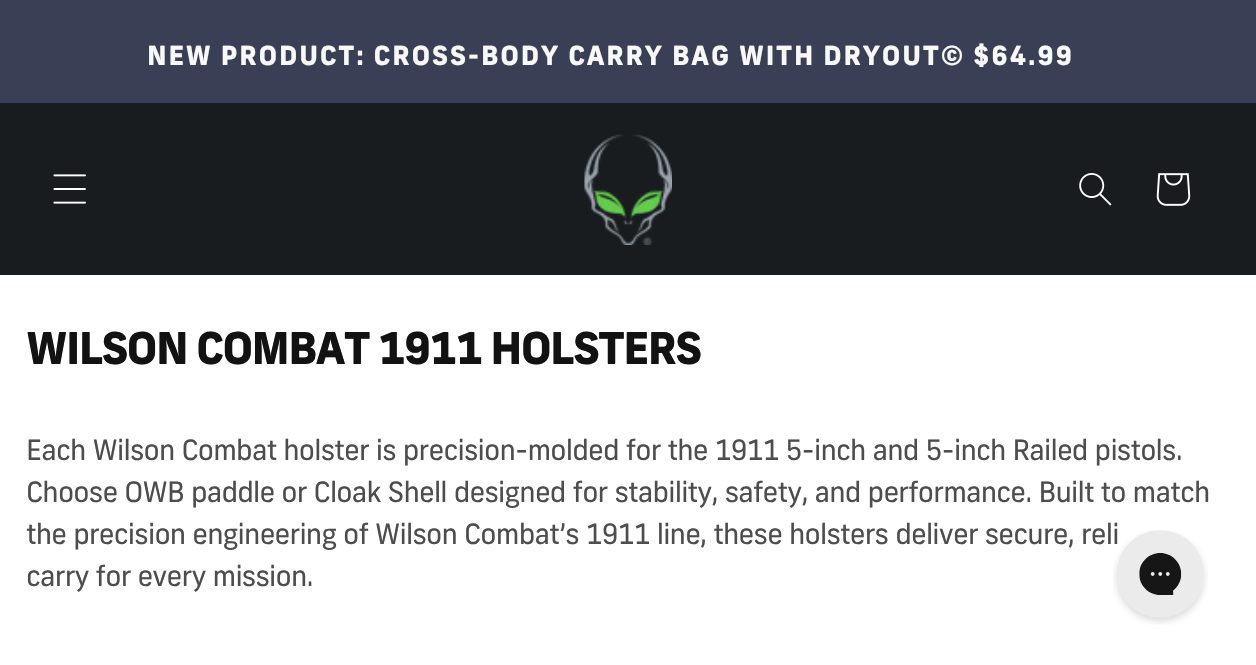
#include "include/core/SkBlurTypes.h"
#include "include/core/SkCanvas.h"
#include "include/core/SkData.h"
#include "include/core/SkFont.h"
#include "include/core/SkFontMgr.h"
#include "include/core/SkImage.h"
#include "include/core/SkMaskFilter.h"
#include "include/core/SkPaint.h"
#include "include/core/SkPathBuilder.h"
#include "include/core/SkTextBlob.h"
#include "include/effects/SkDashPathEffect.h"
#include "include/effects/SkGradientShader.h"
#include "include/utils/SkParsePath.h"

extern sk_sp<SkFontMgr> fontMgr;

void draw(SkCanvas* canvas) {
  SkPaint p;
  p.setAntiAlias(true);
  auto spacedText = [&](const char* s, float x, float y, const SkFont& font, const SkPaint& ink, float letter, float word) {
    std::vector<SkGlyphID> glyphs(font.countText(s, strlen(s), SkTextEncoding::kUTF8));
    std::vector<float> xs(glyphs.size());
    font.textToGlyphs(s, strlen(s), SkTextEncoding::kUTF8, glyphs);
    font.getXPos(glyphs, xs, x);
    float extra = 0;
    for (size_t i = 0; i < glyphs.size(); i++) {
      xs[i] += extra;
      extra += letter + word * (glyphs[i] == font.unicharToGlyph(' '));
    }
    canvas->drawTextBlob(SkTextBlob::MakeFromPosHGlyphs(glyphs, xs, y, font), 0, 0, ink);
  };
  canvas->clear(SK_ColorWHITE);
  p.setColor(SkColorSetRGB(57, 63, 84));
  canvas->drawRect(SkRect::MakeLTRB(0, 0, 1256, 103), p);
  p.setColor(SkColorSetRGB(25, 28, 31));
  canvas->drawRect(SkRect::MakeLTRB(0, 103, 1256, 275), p);
  canvas->drawImageRect(SkImages::DeferredFromEncodedData(SkData::MakeFromFileName("images/1.png")), SkRect::MakeLTRB(53, 174, 86, 204), SkSamplingOptions());
  canvas->drawImageRect(SkImages::DeferredFromEncodedData(SkData::MakeFromFileName("images/2.png")), SkRect::MakeLTRB(584, 134, 672, 245), SkSamplingOptions());
  canvas->drawImageRect(SkImages::DeferredFromEncodedData(SkData::MakeFromFileName("images/3.png")), SkRect::MakeLTRB(1079, 173, 1112, 206), SkSamplingOptions());
  canvas->drawImageRect(SkImages::DeferredFromEncodedData(SkData::MakeFromFileName("images/4.png")), SkRect::MakeLTRB(1156, 173, 1191, 206), SkSamplingOptions());
  SkFont font1(fontMgr->matchFamilyStyle("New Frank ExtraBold", SkFontStyle(800, SkFontStyle::kNormal_Width, SkFontStyle::kUpright_Slant)), 26.25f);
  font1.setSubpixel(true);
  p.setColor(SkColorSetRGB(248, 248, 248));
  spacedText("NEW PRODUCT: CROSS-BODY CARRY BAG WITH DRYOUT© $64.99", 147, 65, font1, p, 1.75f, 0);
  SkFont font2(fontMgr->matchFamilyStyle("New Frank ExtraBold", SkFontStyle(800, SkFontStyle::kNormal_Width, SkFontStyle::kUpright_Slant)), 43.75f);
  font2.setSubpixel(true);
  p.setColor(SkColorSetRGB(18, 18, 18));
  spacedText("WILSON COMBAT 1911 HOLSTERS", 26, 364, font2, p, -1.75f, 0);
  SkFont font3(fontMgr->matchFamilyStyle("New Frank", SkFontStyle::Normal()), 28);
  font3.setSubpixel(true);
  p.setColor(SkColorSetRGB(77, 77, 77));
  spacedText("Each Wilson Combat holster is precision-molded for the 1911 5-inch and 5-inch Railed pistols.", 26, 460, font3, p, -0.83f, 0);
  spacedText("Choose OWB paddle or Cloak Shell designed for stability, safety, and performance. Built to match", 26, 502, font3, p, -0.83f, 0);
  spacedText("the precision engineering of Wilson Combat’s 1911 line, these holsters deliver secure, reli", 26, 544, font3, p, -0.83f, 0);
  spacedText("carry for every mission.", 26, 586, font3, p, -0.83f, 0);
  canvas->drawImageRect(SkImages::DeferredFromEncodedData(SkData::MakeFromFileName("images/5.png")), SkRect::MakeLTRB(1113, 530, 1208, 625), SkSamplingOptions());
}
